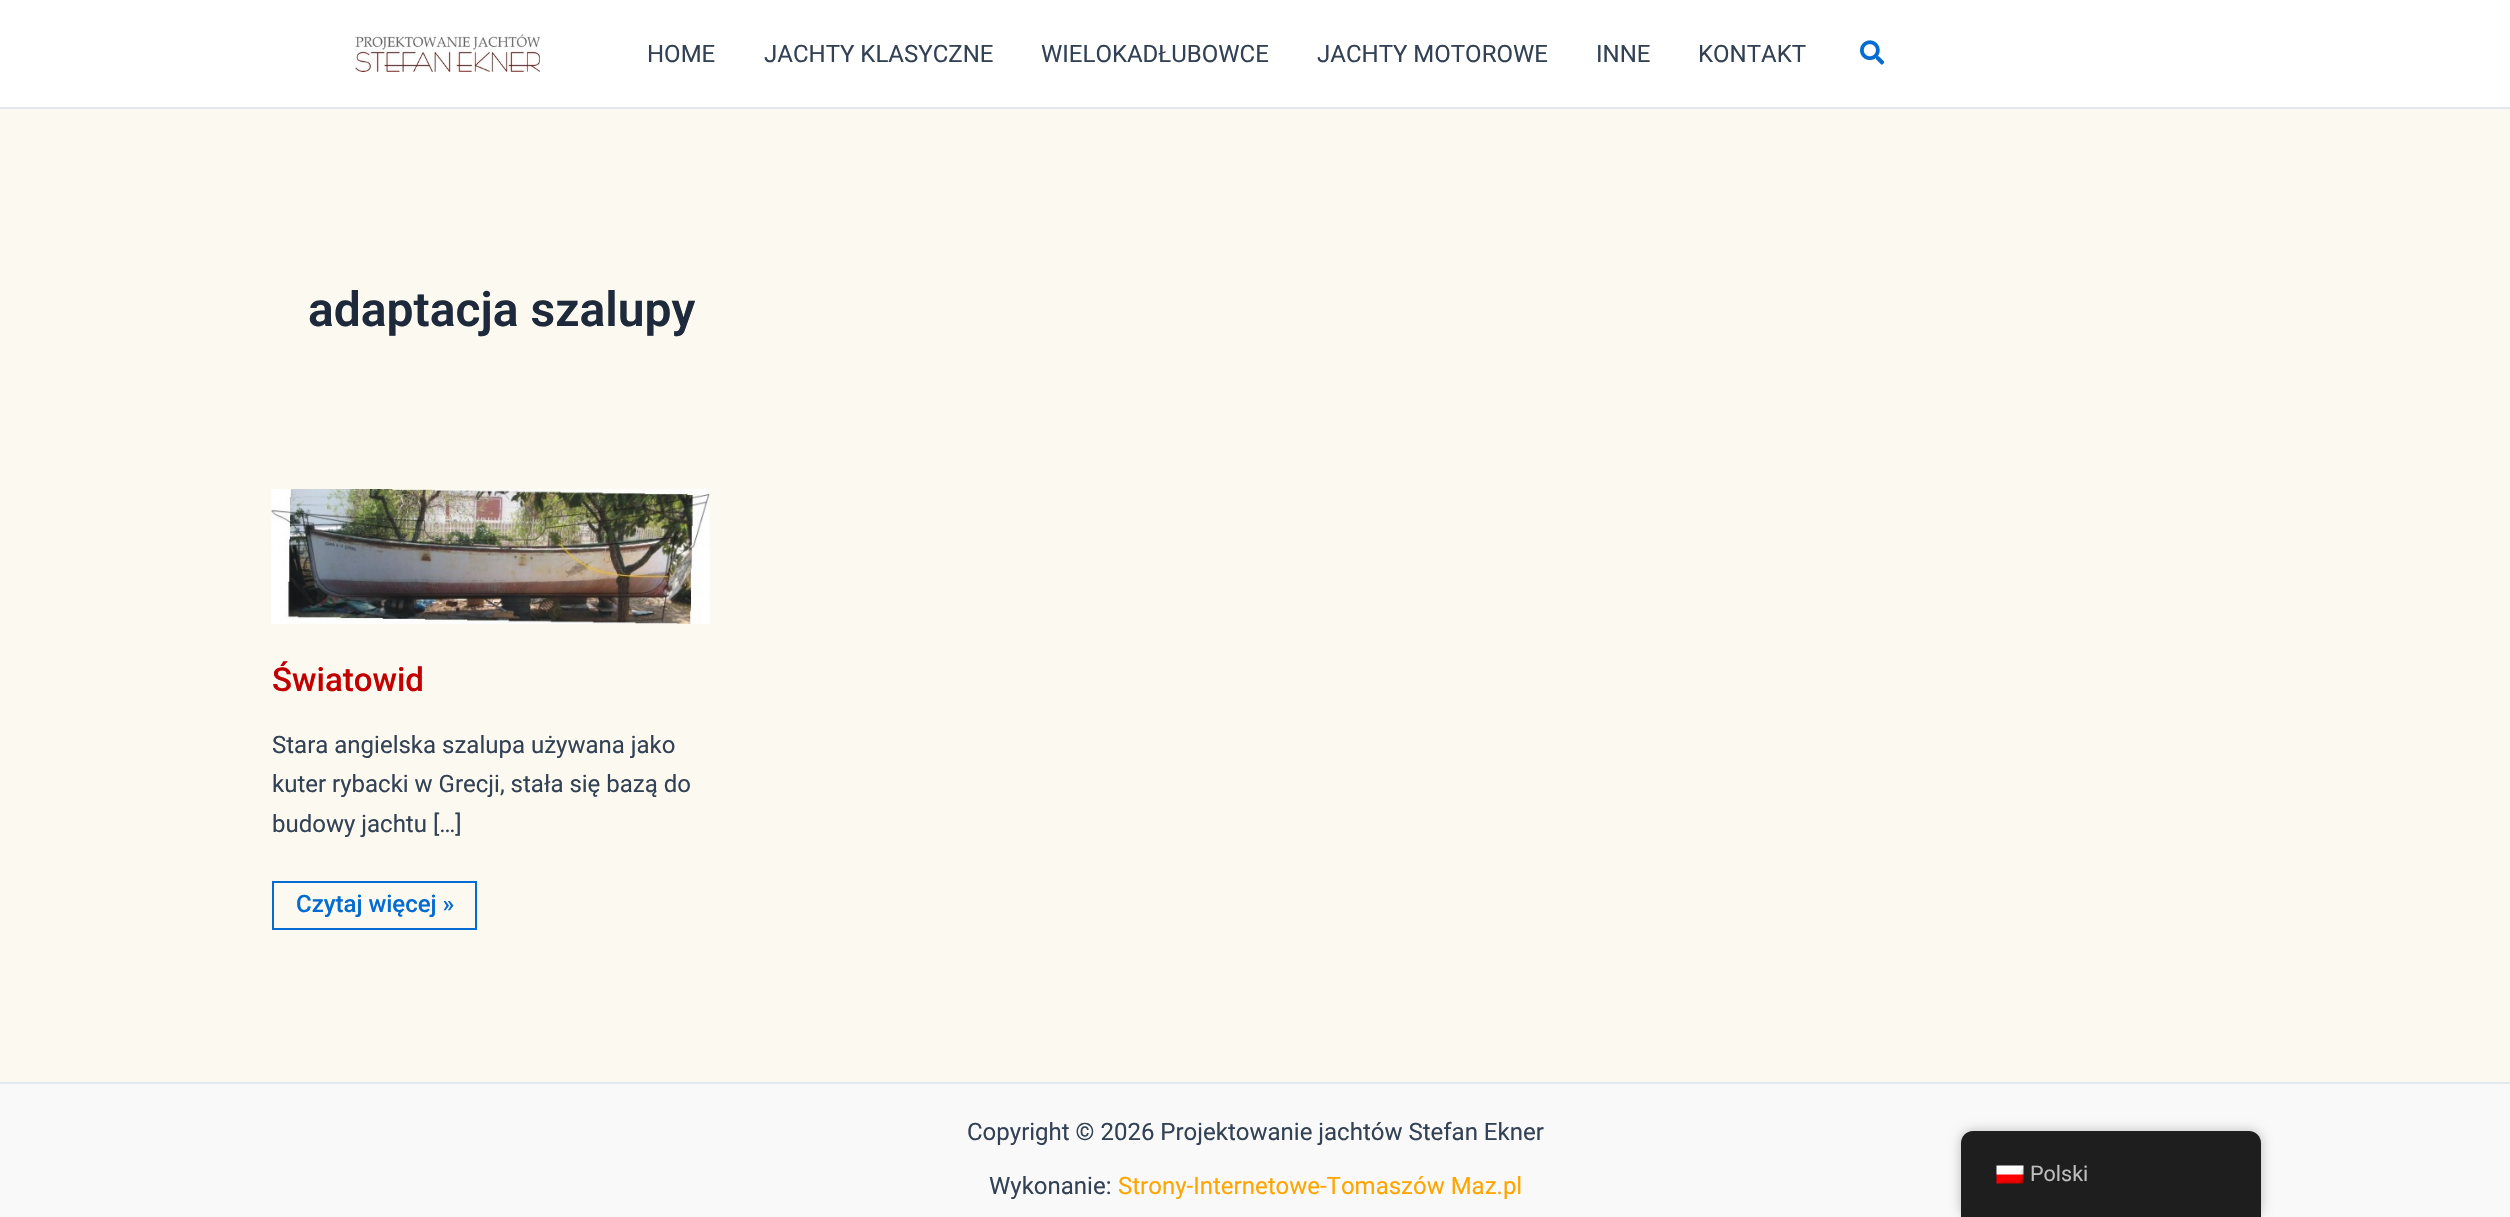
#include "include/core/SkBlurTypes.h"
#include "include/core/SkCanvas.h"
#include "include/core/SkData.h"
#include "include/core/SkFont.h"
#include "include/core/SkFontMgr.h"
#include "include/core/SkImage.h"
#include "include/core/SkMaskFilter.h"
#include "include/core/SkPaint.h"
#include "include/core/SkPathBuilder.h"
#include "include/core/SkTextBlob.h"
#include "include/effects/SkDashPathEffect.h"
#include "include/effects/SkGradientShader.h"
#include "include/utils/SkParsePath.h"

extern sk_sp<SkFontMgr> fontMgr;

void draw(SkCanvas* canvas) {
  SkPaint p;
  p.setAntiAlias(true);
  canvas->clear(SkColorSetRGB(252, 250, 240));
  p.setColor(SK_ColorWHITE);
  canvas->drawRect(SkRect::MakeLTRB(0, 0, 2510, 107), p);
  p.setColor(SkColorSetRGB(226, 232, 240));
  canvas->drawRect(SkRect::MakeLTRB(0, 107, 2510, 109), p);
  canvas->drawImageRect(SkImages::DeferredFromEncodedData(SkData::MakeFromFileName("images/1.png")), SkRect::MakeLTRB(355, 34, 540, 72), SkSamplingOptions());
  canvas->drawImageRect(SkImages::DeferredFromEncodedData(SkData::MakeFromFileName("images/2.png")), SkRect::MakeLTRB(1860, 40, 1884, 65), SkSamplingOptions());
  canvas->drawImageRect(SkImages::DeferredFromEncodedData(SkData::MakeFromFileName("images/3.png")), SkRect::MakeLTRB(271, 489, 710, 624), SkSamplingOptions());
  p.setStyle(SkPaint::kStroke_Style);
  p.setStrokeWidth(2);
  p.setColor(SkColorSetRGB(4, 107, 210));
  canvas->drawRect(SkRect::MakeLTRB(273, 882, 476, 929), p);
  p.setStyle(SkPaint::kFill_Style);
  p.setColor(SkColorSetRGB(249, 249, 249));
  canvas->drawRect(SkRect::MakeLTRB(0, 1084, 2510, 1217), p);
  p.setColor(SkColorSetRGB(226, 232, 240));
  canvas->drawRect(SkRect::MakeLTRB(0, 1082, 2510, 1084), p);
  p.setColor(SkColorSetARGB(64, 0, 0, 0));
  p.setMaskFilter(SkMaskFilter::MakeBlur(kNormal_SkBlurStyle, 6));
  canvas->drawRoundRect(SkRect::MakeLTRB(1961, 1131, 2261, 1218), 12, 12, p);
  p.setMaskFilter(nullptr);
  p.setColor(SkColorSetRGB(30, 30, 30));
  canvas->drawPath(SkPathBuilder().moveTo(1973, 1131).lineTo(2249, 1131).cubicTo(2255.5f, 1131, 2261, 1136.5f, 2261, 1143).lineTo(2261, 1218).lineTo(1961, 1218).lineTo(1961, 1143).cubicTo(1961, 1136.5f, 1966.5f, 1131, 1973, 1131).close().detach(), p);
  canvas->drawImageRect(SkImages::DeferredFromEncodedData(SkData::MakeFromFileName("images/4.png")), SkRect::MakeLTRB(1996, 1165, 2024, 1184), SkSamplingOptions());
  SkFont font1(fontMgr->matchFamilyStyle("Roboto", SkFontStyle::Normal()), 24);
  font1.setSubpixel(true);
  p.setColor(SkColorSetRGB(51, 65, 85));
  canvas->drawString("HOME", 647, 62, font1, p);
  canvas->drawString("JACHTY KLASYCZNE", 764, 62, font1, p);
  canvas->drawString("WIELOKADŁUBOWCE", 1041, 62, font1, p);
  canvas->drawString("JACHTY MOTOROWE", 1317, 62, font1, p);
  canvas->drawString("INNE", 1596, 62, font1, p);
  canvas->drawString("KONTAKT", 1698, 62, font1, p);
  SkFont font2(fontMgr->matchFamilyStyle("Roboto", SkFontStyle(600, SkFontStyle::kNormal_Width, SkFontStyle::kUpright_Slant)), 48);
  font2.setSubpixel(true);
  p.setColor(SkColorSetRGB(30, 41, 59));
  canvas->drawString("adaptacja szalupy", 308, 326, font2, p);
  SkFont font3(fontMgr->matchFamilyStyle("Roboto", SkFontStyle(500, SkFontStyle::kNormal_Width, SkFontStyle::kUpright_Slant)), 33);
  font3.setSubpixel(true);
  p.setColor(SkColorSetRGB(195, 0, 0));
  canvas->drawString("Światowid", 272, 691, font3, p);
  p.setColor(SkColorSetRGB(51, 65, 85));
  canvas->drawString("Stara angielska szalupa używana jako", 272, 753, font1, p);
  canvas->drawString("kuter rybacki w Grecji, stała się bazą do", 272, 792, font1, p);
  canvas->drawString("budowy jachtu […]", 272, 832, font1, p);
  SkFont font4(fontMgr->matchFamilyStyle("Roboto", SkFontStyle(500, SkFontStyle::kNormal_Width, SkFontStyle::kUpright_Slant)), 24);
  font4.setSubpixel(true);
  p.setColor(SkColorSetRGB(4, 107, 210));
  canvas->drawString("Czytaj więcej »", 296, 912, font4, p);
  p.setColor(SkColorSetRGB(51, 65, 85));
  canvas->drawString("Copyright © 2026 Projektowanie jachtów Stefan Ekner", 967, 1140, font1, p);
  canvas->drawString("Wykonanie:", 989, 1194, font1, p);
  p.setColor(SkColorSetRGB(255, 165, 0));
  canvas->drawString("Strony-Internetowe-Tomaszów Maz.pl", 1118, 1194, font1, p);
  SkFont font5(fontMgr->matchFamilyStyle("Roboto", SkFontStyle::Normal()), 21.5f);
  font5.setSubpixel(true);
  p.setColor(SkColorSetRGB(189, 189, 189));
  canvas->drawString("Polski", 2030, 1181, font5, p);
}
